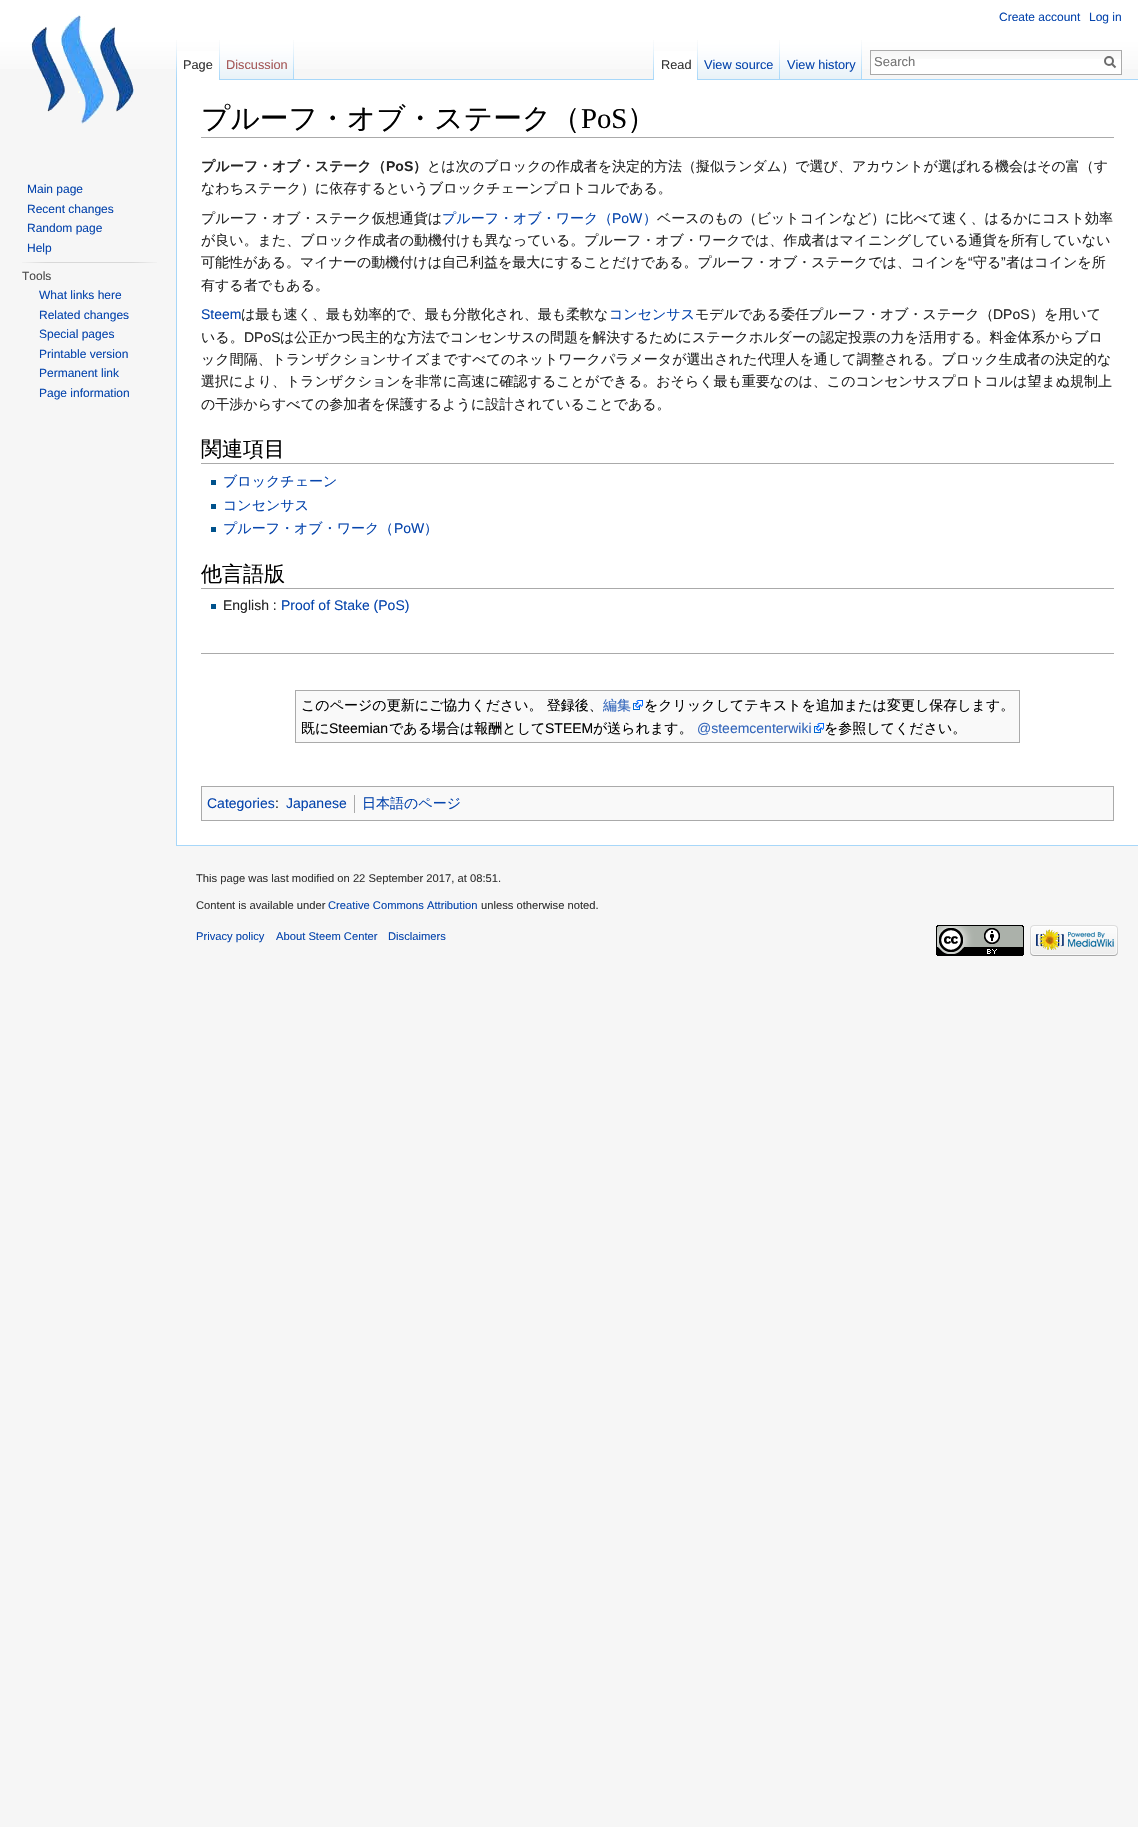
#include "include/core/SkBlurTypes.h"
#include "include/core/SkCanvas.h"
#include "include/core/SkData.h"
#include "include/core/SkFont.h"
#include "include/core/SkFontMgr.h"
#include "include/core/SkImage.h"
#include "include/core/SkMaskFilter.h"
#include "include/core/SkPaint.h"
#include "include/core/SkPathBuilder.h"
#include "include/core/SkTextBlob.h"
#include "include/effects/SkDashPathEffect.h"
#include "include/effects/SkGradientShader.h"
#include "include/utils/SkParsePath.h"

extern sk_sp<SkFontMgr> fontMgr;

void draw(SkCanvas* canvas) {
  SkPaint p;
  p.setAntiAlias(true);
  canvas->clear(SkColorSetRGB(246, 246, 246));
  {
    const SkColor colors[] = {SK_ColorWHITE, SkColorSetRGB(246, 246, 246)};
    const float stops[] = {0.5f, 1};
    const SkPoint ends[] = {{569, 0}, {569, 80}};
    p.setShader(SkGradientShader::MakeLinear(ends, colors, stops, 2, SkTileMode::kClamp));
    p.setAlpha(255);
  }
  canvas->drawRect(SkRect::MakeLTRB(0, 0, 1138, 69), p);
  canvas->drawImageRect(SkImages::DeferredFromEncodedData(SkData::MakeFromFileName("images/1.png")), SkRect::MakeLTRB(176, 40, 177, 79), SkSamplingOptions());
  p.setShader(nullptr);
  p.setColor(SK_ColorWHITE);
  canvas->drawRect(SkRect::MakeLTRB(177, 51, 219, 80), p);
  canvas->drawImageRect(SkImages::DeferredFromEncodedData(SkData::MakeFromFileName("images/2.png")), SkRect::MakeLTRB(219, 40, 220, 80), SkSamplingOptions());
  canvas->drawImageRect(SkImages::DeferredFromEncodedData(SkData::MakeFromFileName("images/3.png")), SkRect::MakeLTRB(220, 40, 294, 80), SkSamplingOptions());
  canvas->drawImageRect(SkImages::DeferredFromEncodedData(SkData::MakeFromFileName("images/4.png")), SkRect::MakeLTRB(293, 40, 294, 79), SkSamplingOptions());
  canvas->drawImageRect(SkImages::DeferredFromEncodedData(SkData::MakeFromFileName("images/1.png")), SkRect::MakeLTRB(653, 40, 654, 79), SkSamplingOptions());
  p.setColor(SkColorSetRGB(167, 215, 249));
  canvas->drawRect(SkRect::MakeLTRB(294, 79, 1138, 80), p);
  p.setColor(SK_ColorWHITE);
  canvas->drawRect(SkRect::MakeLTRB(654, 51, 697, 80), p);
  canvas->drawImageRect(SkImages::DeferredFromEncodedData(SkData::MakeFromFileName("images/2.png")), SkRect::MakeLTRB(697, 40, 698, 80), SkSamplingOptions());
  canvas->drawImageRect(SkImages::DeferredFromEncodedData(SkData::MakeFromFileName("images/5.png")), SkRect::MakeLTRB(698, 40, 780, 80), SkSamplingOptions());
  canvas->drawImageRect(SkImages::DeferredFromEncodedData(SkData::MakeFromFileName("images/4.png")), SkRect::MakeLTRB(779, 40, 780, 79), SkSamplingOptions());
  canvas->drawImageRect(SkImages::DeferredFromEncodedData(SkData::MakeFromFileName("images/5.png")), SkRect::MakeLTRB(780, 40, 862, 80), SkSamplingOptions());
  canvas->drawImageRect(SkImages::DeferredFromEncodedData(SkData::MakeFromFileName("images/4.png")), SkRect::MakeLTRB(861, 40, 862, 79), SkSamplingOptions());
  canvas->drawRect(SkRect::MakeLTRB(871, 59, 1121, 74), p);
  canvas->drawImageRect(SkImages::DeferredFromEncodedData(SkData::MakeFromFileName("images/6.png")), SkRect::MakeLTRB(871, 51, 1121, 59), SkSamplingOptions());
  p.setStyle(SkPaint::kStroke_Style);
  p.setStrokeWidth(1);
  p.setColor(SkColorSetRGB(170, 170, 170));
  canvas->drawRect(SkRect::MakeLTRB(870.5f, 50.5f, 1121.5f, 74.5f), p);
  p.setStrokeWidth(2);
  p.setColor(SkColorSetRGB(108, 108, 108));
  canvas->drawPath(SkPathBuilder().moveTo(1115.5f, 67.5f).lineTo(1111.5f, 63.5f).detach(), p);
  canvas->drawCircle(1109, 61, 4, p);
  canvas->drawImageRect(SkImages::DeferredFromEncodedData(SkData::MakeFromFileName("images/7.png")), SkRect::MakeLTRB(30, 14, 134, 124), SkSamplingOptions());
  canvas->drawImageRect(SkImages::DeferredFromEncodedData(SkData::MakeFromFileName("images/8.png")), SkRect::MakeLTRB(22, 262, 157, 263), SkSamplingOptions());
  p.setStyle(SkPaint::kFill_Style);
  p.setColor(SK_ColorWHITE);
  canvas->drawRect(SkRect::MakeLTRB(177, 80, 1138, 845), p);
  p.setColor(SkColorSetRGB(167, 215, 249));
  canvas->drawRect(SkRect::MakeLTRB(176, 845, 1138, 846), p);
  canvas->drawRect(SkRect::MakeLTRB(176, 79, 177, 846), p);
  p.setColor(SkColorSetRGB(170, 170, 170));
  canvas->drawRect(SkRect::MakeLTRB(201, 137, 1114, 138), p);
  canvas->drawRect(SkRect::MakeLTRB(201, 463, 1114, 464), p);
  p.setColor(SkColorSetRGB(0, 82, 140));
  canvas->drawRect(SkRect::MakeLTRB(211, 480, 216, 485), p);
  canvas->drawRect(SkRect::MakeLTRB(211, 504, 216, 509), p);
  canvas->drawRect(SkRect::MakeLTRB(211, 527, 216, 532), p);
  p.setColor(SkColorSetRGB(170, 170, 170));
  canvas->drawRect(SkRect::MakeLTRB(201, 588, 1114, 589), p);
  p.setColor(SkColorSetRGB(0, 82, 140));
  canvas->drawRect(SkRect::MakeLTRB(211, 604, 216, 609), p);
  p.setColor(SkColorSetRGB(170, 170, 170));
  canvas->drawRect(SkRect::MakeLTRB(201, 653, 1114, 654), p);
  p.setColor(SkColorSetRGB(249, 249, 249));
  canvas->drawRect(SkRect::MakeLTRB(296, 691, 1019, 742), p);
  p.setColor(SkColorSetRGB(170, 170, 170));
  canvas->drawRect(SkRect::MakeLTRB(295, 690, 1020, 691), p);
  canvas->drawRect(SkRect::MakeLTRB(1019, 690, 1020, 743), p);
  canvas->drawRect(SkRect::MakeLTRB(295, 742, 1020, 743), p);
  canvas->drawRect(SkRect::MakeLTRB(295, 690, 296, 743), p);
  canvas->drawImageRect(SkImages::DeferredFromEncodedData(SkData::MakeFromFileName("images/9.png")), SkRect::MakeLTRB(633, 700, 643, 710), SkSamplingOptions());
  canvas->drawImageRect(SkImages::DeferredFromEncodedData(SkData::MakeFromFileName("images/9.png")), SkRect::MakeLTRB(814, 723, 824, 733), SkSamplingOptions());
  p.setColor(SkColorSetRGB(249, 249, 249));
  canvas->drawRect(SkRect::MakeLTRB(201.5f, 786.5f, 1113.5f, 820.5f), p);
  p.setStyle(SkPaint::kStroke_Style);
  p.setStrokeWidth(1);
  p.setColor(SkColorSetRGB(170, 170, 170));
  canvas->drawRect(SkRect::MakeLTRB(201.5f, 786.5f, 1113.5f, 820.5f), p);
  p.setStyle(SkPaint::kFill_Style);
  canvas->drawRect(SkRect::MakeLTRB(354, 795, 355, 813), p);
  canvas->drawImageRect(SkImages::DeferredFromEncodedData(SkData::MakeFromFileName("images/10.png")), SkRect::MakeLTRB(936, 925, 1024, 956), SkSamplingOptions());
  canvas->drawImageRect(SkImages::DeferredFromEncodedData(SkData::MakeFromFileName("images/11.png")), SkRect::MakeLTRB(1030, 925, 1118, 956), SkSamplingOptions());
  SkFont font1(fontMgr->matchFamilyStyle("Liberation Sans", SkFontStyle::Normal()), 12);
  font1.setSubpixel(true);
  p.setColor(SkColorSetRGB(6, 69, 173));
  canvas->drawString("Create account", 999, 21, font1, p);
  canvas->drawString("Log in", 1089, 21, font1, p);
  SkFont font2(fontMgr->matchFamilyStyle("Liberation Sans", SkFontStyle::Normal()), 12.75f);
  font2.setSubpixel(true);
  p.setColor(SkColorSetRGB(51, 51, 51));
  canvas->drawString("Page", 183, 69, font2, p);
  p.setColor(SkColorSetRGB(165, 88, 88));
  canvas->drawString("Discussion", 226, 69, font2, p);
  p.setColor(SkColorSetRGB(51, 51, 51));
  canvas->drawString("Read", 661, 69, font2, p);
  p.setColor(SkColorSetRGB(6, 69, 173));
  canvas->drawString("View source", 704, 69, font2, p);
  canvas->drawString("View history", 787, 69, font2, p);
  SkFont font3(fontMgr->matchFamilyStyle("Liberation Sans", SkFontStyle::Normal()), 13);
  font3.setSubpixel(true);
  p.setColor(SkColorSetRGB(117, 117, 117));
  canvas->drawString("Search", 874, 66, font3, p);
  p.setColor(SkColorSetRGB(6, 69, 173));
  canvas->drawString("Main page", 27, 193, font1, p);
  canvas->drawString("Recent changes", 27, 213, font1, p);
  canvas->drawString("Random page", 27, 232, font1, p);
  canvas->drawString("Help", 27, 252, font1, p);
  p.setColor(SkColorSetRGB(77, 77, 77));
  canvas->drawString("Tools", 22, 280, font1, p);
  p.setColor(SkColorSetRGB(6, 69, 173));
  canvas->drawString("What links here", 39, 299, font1, p);
  canvas->drawString("Related changes", 39, 319, font1, p);
  canvas->drawString("Special pages", 39, 338, font1, p);
  canvas->drawString("Printable version", 39, 358, font1, p);
  canvas->drawString("Permanent link", 39, 377, font1, p);
  canvas->drawString("Page information", 39, 397, font1, p);
  SkFont font4(fontMgr->matchFamilyStyle("WenQuanYi Zen Hei", SkFontStyle(500, SkFontStyle::kNormal_Width, SkFontStyle::kUpright_Slant)), 28.75f);
  font4.setSubpixel(true);
  p.setColor(SK_ColorBLACK);
  canvas->drawString("プルーフ・オブ・ステーク（", 201, 128, font4, p);
  SkFont font5(fontMgr->matchFamilyStyle("Liberation Serif", SkFontStyle::Normal()), 28.75f);
  font5.setSubpixel(true);
  canvas->drawString("PoS", 581, 128, font5, p);
  canvas->drawString("）", 627, 128, font4, p);
  SkFont font6(fontMgr->matchFamilyStyle("WenQuanYi Zen Hei", SkFontStyle::Bold()), 14);
  font6.setSubpixel(true);
  p.setColor(SkColorSetRGB(37, 37, 37));
  canvas->drawString("プルーフ・オブ・ステーク（", 201, 171, font6, p);
  SkFont font7(fontMgr->matchFamilyStyle("Liberation Sans", SkFontStyle::Bold()), 14);
  font7.setSubpixel(true);
  canvas->drawString("PoS", 386, 171, font7, p);
  canvas->drawString("）", 413, 171, font6, p);
  SkFont font8(fontMgr->matchFamilyStyle("WenQuanYi Zen Hei", SkFontStyle(500, SkFontStyle::kNormal_Width, SkFontStyle::kUpright_Slant)), 14);
  font8.setSubpixel(true);
  canvas->drawString("とは次のブロックの作成者を決定的方法（擬似ランダム）で選び、アカウントが選ばれる機会はその富（す", 427, 171, font8, p);
  canvas->drawString("なわちステーク）に依存するというブロックチェーンプロトコルである。", 201, 193, font8, p);
  canvas->drawString("プルーフ・オブ・ステーク仮想通貨は", 201, 223, font8, p);
  p.setColor(SkColorSetRGB(6, 69, 173));
  canvas->drawString("プルーフ・オブ・ワーク（", 442, 223, font8, p);
  SkFont font9(fontMgr->matchFamilyStyle("Liberation Sans", SkFontStyle::Normal()), 14);
  font9.setSubpixel(true);
  canvas->drawString("PoW", 612, 223, font9, p);
  canvas->drawString("）", 643, 223, font8, p);
  p.setColor(SkColorSetRGB(37, 37, 37));
  canvas->drawString("ベースのもの（ビットコインなど）に比べて速く、はるかにコスト効率", 657, 223, font8, p);
  canvas->drawString("が良い。また、ブロック作成者の動機付けも異なっている。プルーフ・オブ・ワークでは、作成者はマイニングしている通貨を所有していない", 201, 245, font8, p);
  canvas->drawString("可能性がある。マイナーの動機付けは自己利益を最大にすることだけである。プルーフ・オブ・ステークでは、コインを", 201, 267, font8, p);
  canvas->drawString("“", 968, 267, font9, p);
  canvas->drawString("守る", 973, 267, font8, p);
  canvas->drawString("”", 1001, 267, font9, p);
  canvas->drawString("者はコインを所", 1006, 267, font8, p);
  canvas->drawString("有する者でもある。", 201, 290, font8, p);
  p.setColor(SkColorSetRGB(6, 69, 173));
  canvas->drawString("Steem", 201, 319, font9, p);
  p.setColor(SkColorSetRGB(37, 37, 37));
  canvas->drawString("は最も速く、最も効率的で、最も分散化され、最も柔軟な", 241, 319, font8, p);
  p.setColor(SkColorSetRGB(6, 69, 173));
  canvas->drawString("コンセンサス", 609, 319, font8, p);
  p.setColor(SkColorSetRGB(37, 37, 37));
  canvas->drawString("モデルである委任プルーフ・オブ・ステーク（", 695, 319, font8, p);
  canvas->drawString("DPoS", 993, 319, font9, p);
  canvas->drawString("）を用いて", 1030, 319, font8, p);
  canvas->drawString("いる。", 201, 342, font8, p);
  canvas->drawString("DPoS", 244, 342, font9, p);
  canvas->drawString("は公正かつ民主的な方法でコンセンサスの問題を解決するためにステークホルダーの認定投票の力を活用する。料金体系からブロ", 280, 342, font8, p);
  canvas->drawString("ック間隔、トランザクションサイズまですべてのネットワークパラメータが選出された代理人を通して調整される。ブロック生成者の決定的な", 201, 364, font8, p);
  canvas->drawString("選択により、トランザクションを非常に高速に確認することができる。おそらく最も重要なのは、このコンセンサスプロトコルは望まぬ規制上", 201, 386, font8, p);
  canvas->drawString("の干渉からすべての参加者を保護するように設計されていることである。", 201, 409, font8, p);
  SkFont font10(fontMgr->matchFamilyStyle("WenQuanYi Zen Hei", SkFontStyle(500, SkFontStyle::kNormal_Width, SkFontStyle::kUpright_Slant)), 21);
  font10.setSubpixel(true);
  p.setColor(SK_ColorBLACK);
  canvas->drawString("関連項目", 201, 456, font10, p);
  p.setColor(SkColorSetRGB(6, 69, 173));
  canvas->drawString("ブロックチェーン", 223, 486, font8, p);
  canvas->drawString("コンセンサス", 223, 510, font8, p);
  canvas->drawString("プルーフ・オブ・ワーク（", 223, 533, font8, p);
  canvas->drawString("PoW", 394, 533, font9, p);
  canvas->drawString("）", 424, 533, font8, p);
  p.setColor(SK_ColorBLACK);
  canvas->drawString("他言語版", 201, 581, font10, p);
  p.setColor(SkColorSetRGB(37, 37, 37));
  canvas->drawString("English :", 223, 610, font9, p);
  p.setColor(SkColorSetRGB(6, 69, 173));
  canvas->drawString("Proof of Stake (PoS)", 281, 610, font9, p);
  p.setColor(SK_ColorBLACK);
  canvas->drawString("このページの更新にご協力ください。 登録後、", 301, 710, font8, p);
  p.setColor(SkColorSetRGB(51, 102, 187));
  canvas->drawString("編集", 603, 710, font8, p);
  p.setColor(SK_ColorBLACK);
  canvas->drawString("をクリックしてテキストを追加または変更し保存します。", 644, 710, font8, p);
  canvas->drawString("既に", 301, 733, font8, p);
  canvas->drawString("Steemian", 329, 733, font9, p);
  canvas->drawString("である場合は報酬として", 389, 733, font8, p);
  canvas->drawString("STEEM", 545, 733, font9, p);
  canvas->drawString("が送られます。", 593, 733, font8, p);
  p.setColor(SkColorSetRGB(51, 102, 187));
  canvas->drawString("@steemcenterwiki", 697, 733, font9, p);
  p.setColor(SK_ColorBLACK);
  canvas->drawString("を参照してください。", 824, 733, font8, p);
  p.setColor(SkColorSetRGB(6, 69, 173));
  canvas->drawString("Categories", 207, 808, font9, p);
  p.setColor(SkColorSetRGB(37, 37, 37));
  canvas->drawString(":", 275, 808, font9, p);
  p.setColor(SkColorSetRGB(6, 69, 173));
  canvas->drawString("Japanese", 286, 808, font9, p);
  canvas->drawString("日本語のページ", 362, 808, font8, p);
  SkFont font11(fontMgr->matchFamilyStyle("Liberation Sans", SkFontStyle::Normal()), 11.2f);
  font11.setSubpixel(true);
  p.setColor(SkColorSetRGB(51, 51, 51));
  canvas->drawString("This page was last modified on 22 September 2017, at 08:51.", 196, 882, font11, p);
  canvas->drawString("Content is available under", 196, 909, font11, p);
  p.setColor(SkColorSetRGB(6, 69, 173));
  canvas->drawString("Creative Commons Attribution", 328, 909, font11, p);
  p.setColor(SkColorSetRGB(51, 51, 51));
  canvas->drawString("unless otherwise noted.", 481, 909, font11, p);
  p.setColor(SkColorSetRGB(6, 69, 173));
  canvas->drawString("Privacy policy", 196, 940, font11, p);
  canvas->drawString("About Steem Center", 276, 940, font11, p);
  canvas->drawString("Disclaimers", 388, 940, font11, p);
}
